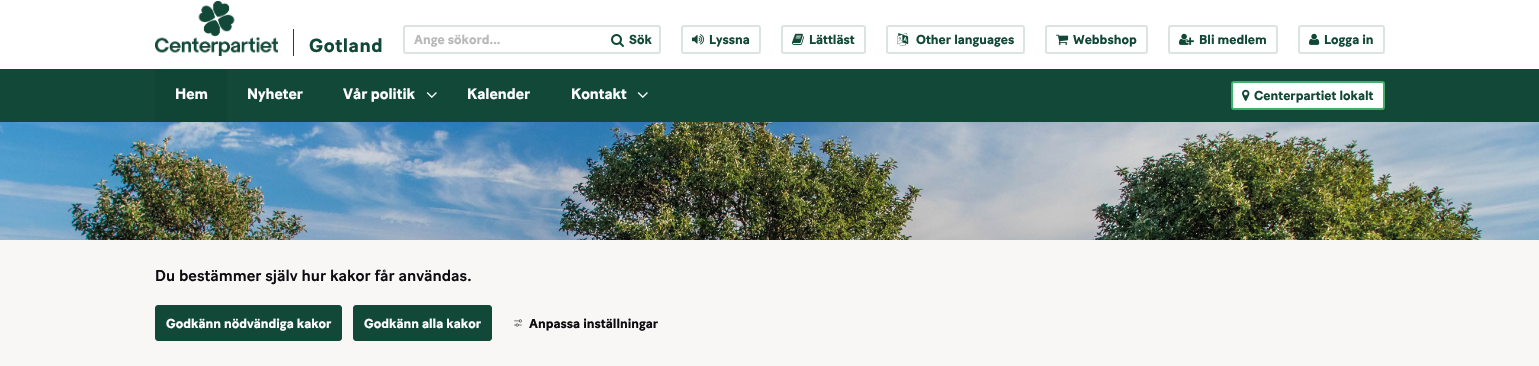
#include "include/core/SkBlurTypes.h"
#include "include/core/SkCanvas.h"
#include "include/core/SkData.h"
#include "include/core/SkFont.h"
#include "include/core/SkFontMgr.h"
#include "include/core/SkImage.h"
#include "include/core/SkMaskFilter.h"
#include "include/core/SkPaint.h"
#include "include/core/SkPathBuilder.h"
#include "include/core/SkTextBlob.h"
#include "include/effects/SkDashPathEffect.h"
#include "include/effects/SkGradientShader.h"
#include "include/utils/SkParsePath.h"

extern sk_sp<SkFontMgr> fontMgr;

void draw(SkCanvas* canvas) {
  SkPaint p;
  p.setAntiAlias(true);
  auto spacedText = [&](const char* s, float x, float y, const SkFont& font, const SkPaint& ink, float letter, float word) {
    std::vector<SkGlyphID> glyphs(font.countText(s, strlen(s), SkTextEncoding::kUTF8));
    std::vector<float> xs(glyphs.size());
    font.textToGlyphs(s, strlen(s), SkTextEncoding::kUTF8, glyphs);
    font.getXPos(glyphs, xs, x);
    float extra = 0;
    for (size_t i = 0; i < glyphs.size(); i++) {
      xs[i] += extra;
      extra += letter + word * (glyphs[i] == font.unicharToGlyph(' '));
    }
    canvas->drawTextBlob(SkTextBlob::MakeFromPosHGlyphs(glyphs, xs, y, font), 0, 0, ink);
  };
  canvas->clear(SK_ColorWHITE);
  canvas->drawImageRect(SkImages::DeferredFromEncodedData(SkData::MakeFromFileName("images/1.png")), SkRect::MakeLTRB(155, 1, 278, 56), SkSamplingOptions());
  p.setColor(SkColorSetRGB(17, 72, 56));
  canvas->drawRect(SkRect::MakeLTRB(293, 29, 294, 56), p);
  p.setStyle(SkPaint::kStroke_Style);
  p.setStrokeWidth(2);
  p.setColor(SkColorSetRGB(219, 228, 225));
  canvas->drawRoundRect(SkRect::MakeLTRB(404, 26, 660, 53), 2, 2, p);
  canvas->drawImageRect(SkImages::DeferredFromEncodedData(SkData::MakeFromFileName("images/2.png")), SkRect::MakeLTRB(611, 34, 624, 47), SkSamplingOptions());
  canvas->drawRoundRect(SkRect::MakeLTRB(682, 26, 760, 53), 2, 2, p);
  canvas->drawImageRect(SkImages::DeferredFromEncodedData(SkData::MakeFromFileName("images/3.png")), SkRect::MakeLTRB(692, 34, 705, 45), SkSamplingOptions());
  canvas->drawRoundRect(SkRect::MakeLTRB(782, 26, 865, 53), 2, 2, p);
  canvas->drawImageRect(SkImages::DeferredFromEncodedData(SkData::MakeFromFileName("images/4.png")), SkRect::MakeLTRB(792, 33, 804, 45), SkSamplingOptions());
  canvas->drawRoundRect(SkRect::MakeLTRB(887, 26, 1024, 53), 2, 2, p);
  canvas->drawImageRect(SkImages::DeferredFromEncodedData(SkData::MakeFromFileName("images/5.png")), SkRect::MakeLTRB(897, 32, 909, 46), SkSamplingOptions());
  canvas->drawRoundRect(SkRect::MakeLTRB(1046, 26, 1147, 53), 2, 2, p);
  canvas->drawImageRect(SkImages::DeferredFromEncodedData(SkData::MakeFromFileName("images/6.png")), SkRect::MakeLTRB(1056, 34, 1069, 45), SkSamplingOptions());
  canvas->drawRoundRect(SkRect::MakeLTRB(1169, 26, 1277, 53), 2, 2, p);
  canvas->drawImageRect(SkImages::DeferredFromEncodedData(SkData::MakeFromFileName("images/7.png")), SkRect::MakeLTRB(1179, 33, 1194, 45), SkSamplingOptions());
  canvas->drawRoundRect(SkRect::MakeLTRB(1299, 26, 1384, 53), 2, 2, p);
  canvas->drawImageRect(SkImages::DeferredFromEncodedData(SkData::MakeFromFileName("images/8.png")), SkRect::MakeLTRB(1309, 33, 1320, 45), SkSamplingOptions());
  p.setStyle(SkPaint::kFill_Style);
  p.setColor(SkColorSetRGB(17, 72, 56));
  canvas->drawRect(SkRect::MakeLTRB(0, 69, 1539, 122), p);
  p.setColor(SkColorSetRGB(16, 68, 53));
  canvas->drawRect(SkRect::MakeLTRB(155, 69, 227, 122), p);
  canvas->drawImageRect(SkImages::DeferredFromEncodedData(SkData::MakeFromFileName("images/9.png")), SkRect::MakeLTRB(426, 92, 437, 98), SkSamplingOptions());
  canvas->drawImageRect(SkImages::DeferredFromEncodedData(SkData::MakeFromFileName("images/9.png")), SkRect::MakeLTRB(637, 92, 648, 98), SkSamplingOptions());
  p.setColor(SK_ColorWHITE);
  canvas->drawRoundRect(SkRect::MakeLTRB(1232, 82, 1384, 109), 2, 2, p);
  p.setStyle(SkPaint::kStroke_Style);
  p.setColor(SkColorSetRGB(64, 175, 105));
  canvas->drawRoundRect(SkRect::MakeLTRB(1232, 82, 1384, 109), 2, 2, p);
  canvas->drawImageRect(SkImages::DeferredFromEncodedData(SkData::MakeFromFileName("images/10.png")), SkRect::MakeLTRB(1242, 89, 1250, 101), SkSamplingOptions());
  canvas->drawImageRect(SkImages::DeferredFromEncodedData(SkData::MakeFromFileName("images/11.png")), SkRect::MakeLTRB(0, 122, 1539, 240), SkSamplingOptions());
  p.setStyle(SkPaint::kFill_Style);
  p.setColor(SkColorSetRGB(248, 247, 245));
  canvas->drawRect(SkRect::MakeLTRB(0, 240, 1539, 366), p);
  p.setColor(SkColorSetRGB(17, 72, 56));
  canvas->drawRoundRect(SkRect::MakeLTRB(155.5f, 305.5f, 341.5f, 340.5f), 2.5f, 2.5f, p);
  p.setStyle(SkPaint::kStroke_Style);
  p.setStrokeWidth(1);
  canvas->drawRoundRect(SkRect::MakeLTRB(155.5f, 305.5f, 341.5f, 340.5f), 2.5f, 2.5f, p);
  p.setStyle(SkPaint::kFill_Style);
  canvas->drawRoundRect(SkRect::MakeLTRB(353.5f, 305.5f, 491.5f, 340.5f), 2.5f, 2.5f, p);
  p.setStyle(SkPaint::kStroke_Style);
  canvas->drawRoundRect(SkRect::MakeLTRB(353.5f, 305.5f, 491.5f, 340.5f), 2.5f, 2.5f, p);
  canvas->drawImageRect(SkImages::DeferredFromEncodedData(SkData::MakeFromFileName("images/12.png")), SkRect::MakeLTRB(514, 319, 522, 327), SkSamplingOptions());
  SkFont font1(fontMgr->matchFamilyStyle("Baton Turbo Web", SkFontStyle::Bold()), 19);
  font1.setSubpixel(true);
  p.setStyle(SkPaint::kFill_Style);
  spacedText("Gotland", 309, 52, font1, p, 0.5f, 0);
  SkFont font2(fontMgr->matchFamilyStyle("Baton Turbo Web", SkFontStyle::Bold()), 13);
  font2.setSubpixel(true);
  p.setColor(SkColorSetRGB(185, 185, 185));
  canvas->drawString("Ange sökord...", 414, 44, font2, p);
  p.setColor(SkColorSetRGB(17, 72, 56));
  canvas->drawString("Sök", 629, 44, font2, p);
  canvas->drawString("Lyssna", 709, 44, font2, p);
  canvas->drawString("Lättläst", 809, 44, font2, p);
  canvas->drawString("Other languages", 916, 44, font2, p);
  canvas->drawString("Webbshop", 1073, 44, font2, p);
  canvas->drawString("Bli medlem", 1199, 44, font2, p);
  canvas->drawString("Logga in", 1324, 44, font2, p);
  SkFont font3(fontMgr->matchFamilyStyle("Baton Turbo Web", SkFontStyle::Bold()), 15);
  font3.setSubpixel(true);
  p.setColor(SK_ColorWHITE);
  canvas->drawString("Hem", 175, 99, font3, p);
  canvas->drawString("Nyheter", 247, 99, font3, p);
  canvas->drawString("Vår politik", 343, 99, font3, p);
  canvas->drawString("Kalender", 467, 99, font3, p);
  canvas->drawString("Kontakt", 571, 99, font3, p);
  p.setColor(SkColorSetRGB(17, 72, 56));
  canvas->drawString("Centerpartiet lokalt", 1254, 100, font2, p);
  SkFont font4(fontMgr->matchFamilyStyle("Baton Turbo Web", SkFontStyle(500, SkFontStyle::kNormal_Width, SkFontStyle::kUpright_Slant)), 15.75f);
  font4.setSubpixel(true);
  p.setColor(SkColorSetRGB(15, 12, 17));
  canvas->drawString("Du bestämmer själv hur kakor får användas.", 155, 281, font4, p);
  p.setColor(SK_ColorWHITE);
  canvas->drawString("Godkänn nödvändiga kakor", 166, 328, font2, p);
  canvas->drawString("Godkänn alla kakor", 364, 328, font2, p);
  p.setColor(SkColorSetRGB(15, 12, 17));
  canvas->drawString("Anpassa inställningar", 529, 328, font2, p);
}
